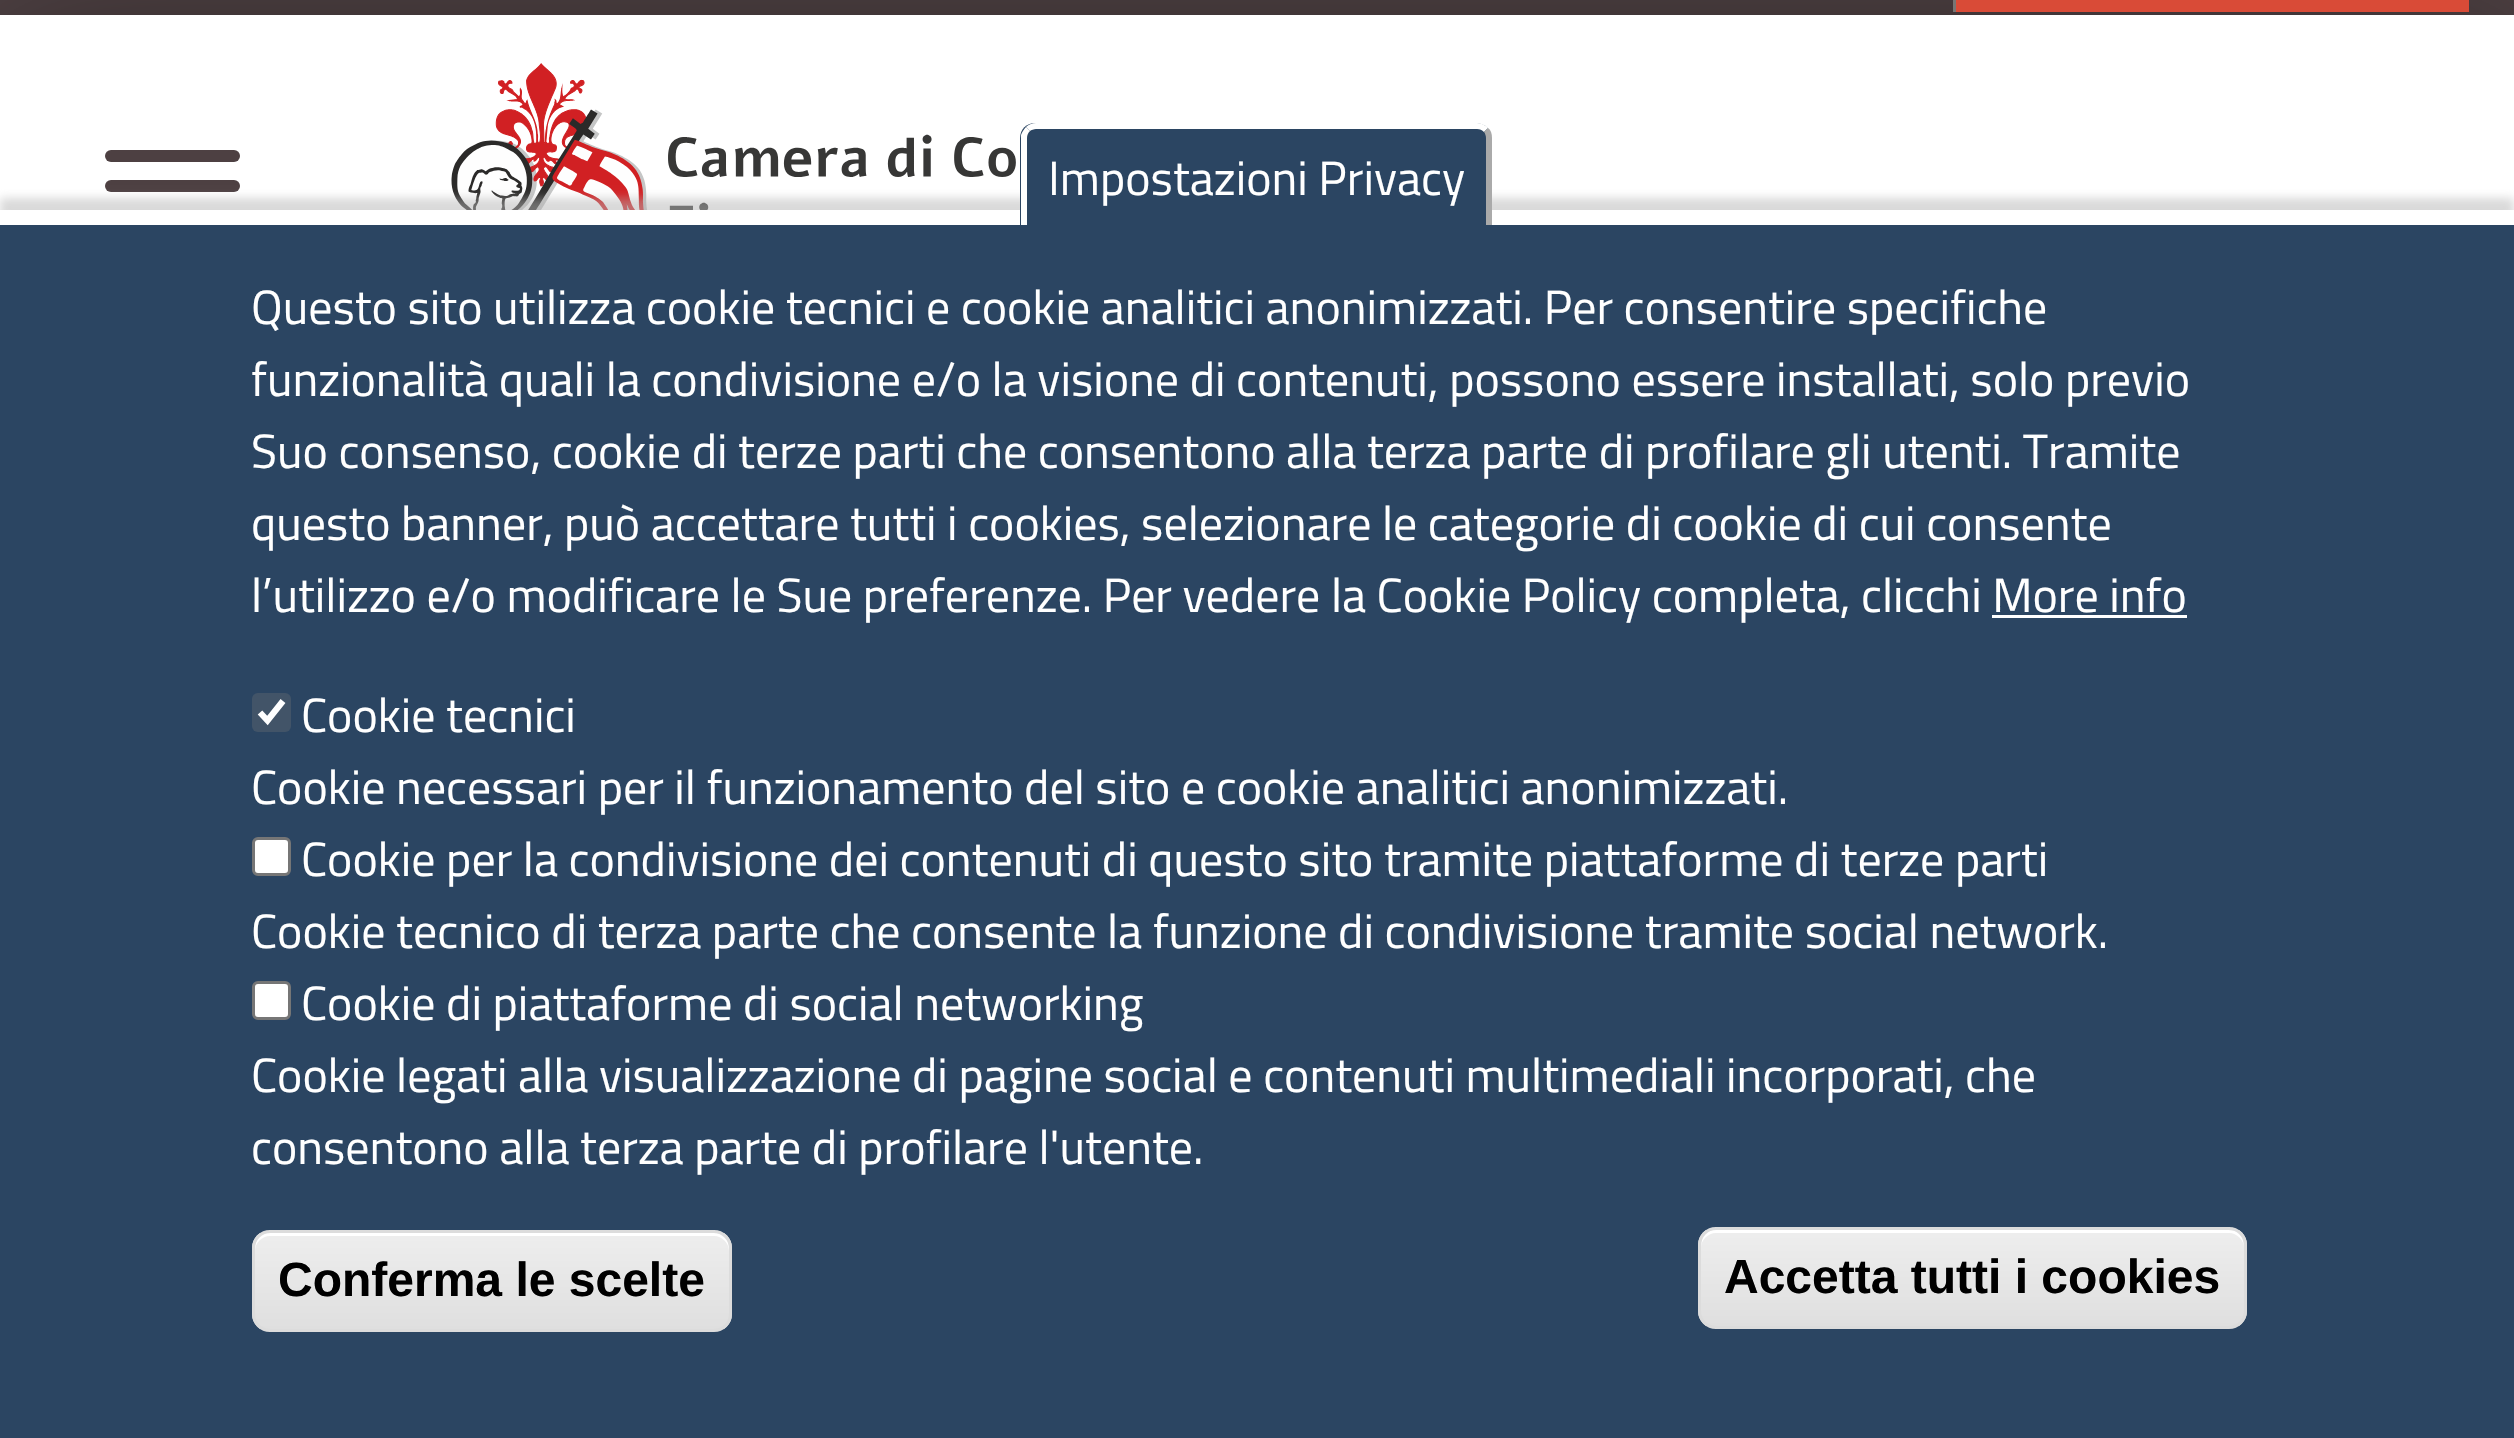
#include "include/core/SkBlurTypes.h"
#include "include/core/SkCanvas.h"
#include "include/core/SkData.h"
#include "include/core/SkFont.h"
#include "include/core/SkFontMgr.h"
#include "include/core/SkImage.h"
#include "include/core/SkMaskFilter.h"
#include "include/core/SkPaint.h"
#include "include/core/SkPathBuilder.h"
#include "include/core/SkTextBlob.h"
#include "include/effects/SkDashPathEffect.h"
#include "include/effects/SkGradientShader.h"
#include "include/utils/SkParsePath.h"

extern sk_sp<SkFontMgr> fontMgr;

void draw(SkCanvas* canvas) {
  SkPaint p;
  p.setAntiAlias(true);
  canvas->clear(SkColorSetRGB(77, 64, 66));
  p.setColor(SkColorSetARGB(115, 0, 0, 0));
  p.setMaskFilter(SkMaskFilter::MakeBlur(kNormal_SkBlurStyle, 75));
  canvas->drawRect(SkRect::MakeLTRB(0, 45, 2514, 405), p);
  p.setMaskFilter(nullptr);
  p.setColor(SK_ColorWHITE);
  canvas->drawRect(SkRect::MakeLTRB(0, 15, 2514, 210), p);
  p.setColor(SkColorSetRGB(77, 64, 66));
  canvas->drawRoundRect(SkRect::MakeLTRB(105, 150, 240, 162), 6, 6, p);
  canvas->drawRoundRect(SkRect::MakeLTRB(105, 180, 240, 192), 6, 6, p);
  canvas->drawImageRect(SkImages::DeferredFromEncodedData(SkData::MakeFromFileName("images/1.png")), SkRect::MakeLTRB(451, 63, 1016, 210), SkSamplingOptions());
  p.setColor(SkColorSetRGB(119, 118, 116));
  canvas->drawRect(SkRect::MakeLTRB(1953, 0, 1956, 12), p);
  p.setColor(SkColorSetRGB(217, 75, 55));
  canvas->drawRect(SkRect::MakeLTRB(1956, 0, 2469, 12), p);
  p.setColor(SkColorSetARGB(128, 180, 180, 180));
  p.setMaskFilter(SkMaskFilter::MakeBlur(kNormal_SkBlurStyle, 4.5f));
  canvas->drawRect(SkRect::MakeLTRB(0, 198, 2514, 1428), p);
  p.setMaskFilter(nullptr);
  p.setColor(SkColorSetRGB(43, 69, 98));
  canvas->drawRect(SkRect::MakeLTRB(0, 225, 2514, 1438), p);
  p.setColor(SK_ColorWHITE);
  canvas->drawRect(SkRect::MakeLTRB(0, 210, 2514, 225), p);
  p.setColor(SkColorSetRGB(43, 69, 98));
  canvas->drawPath(SkPathBuilder().moveTo(1035, 123).lineTo(1476, 123).cubicTo(1484.5f, 123, 1491, 129.5f, 1491, 138).lineTo(1491, 225).lineTo(1020, 225).lineTo(1020, 138).cubicTo(1020, 129.5f, 1026.5f, 123, 1035, 123).close().detach(), p);
  p.setColor(SK_ColorWHITE);
  canvas->drawPath(SkPathBuilder().moveTo(1036, 123).cubicTo(1032, 123, 1028, 125, 1026, 127).lineTo(1030, 131).cubicTo(1031, 130, 1034, 129, 1036, 129).lineTo(1477, 129).cubicTo(1480, 129, 1482, 130, 1484, 132).lineTo(1488, 128).cubicTo(1485, 125, 1482, 123, 1477, 123).close().detach(), p);
  p.setColor(SkColorSetRGB(170, 170, 170));
  canvas->drawPath(SkPathBuilder().moveTo(1486, 225).lineTo(1492, 225).lineTo(1492, 138).cubicTo(1492, 134, 1491, 130, 1488, 128).lineTo(1484, 132).cubicTo(1485, 133, 1486, 136, 1486, 138).close().detach(), p);
  p.setColor(SK_ColorWHITE);
  canvas->drawPath(SkPathBuilder().moveTo(1021, 225).lineTo(1021, 135).cubicTo(1022, 132, 1024, 129, 1026, 127).lineTo(1030, 131).cubicTo(1028, 133, 1027, 135, 1027, 138).lineTo(1027, 225).close().detach(), p);
  canvas->drawRect(SkRect::MakeLTRB(1992, 615, 2187, 618), p);
  p.setColor(SkColorSetRGB(66, 84, 104));
  canvas->drawRoundRect(SkRect::MakeLTRB(252, 693, 291, 732), 6, 6, p);
  p.setStyle(SkPaint::kStroke_Style);
  p.setStrokeWidth(6.2f);
  p.setColor(SK_ColorWHITE);
  canvas->drawPath(SkPathBuilder().moveTo(260, 712.5f).lineTo(267.5f, 720.5f).lineTo(283, 701).detach(), p);
  p.setStyle(SkPaint::kFill_Style);
  canvas->drawRoundRect(SkRect::MakeLTRB(253.5f, 838.5f, 289.5f, 874.5f), 4.5f, 4.5f, p);
  p.setStyle(SkPaint::kStroke_Style);
  p.setStrokeWidth(3);
  p.setColor(SkColorSetRGB(118, 118, 118));
  canvas->drawRoundRect(SkRect::MakeLTRB(253.5f, 838.5f, 289.5f, 874.5f), 4.5f, 4.5f, p);
  p.setStyle(SkPaint::kFill_Style);
  p.setColor(SK_ColorWHITE);
  canvas->drawRoundRect(SkRect::MakeLTRB(253.5f, 982.5f, 289.5f, 1018.5f), 4.5f, 4.5f, p);
  p.setStyle(SkPaint::kStroke_Style);
  p.setColor(SkColorSetRGB(118, 118, 118));
  canvas->drawRoundRect(SkRect::MakeLTRB(253.5f, 982.5f, 289.5f, 1018.5f), 4.5f, 4.5f, p);
  canvas->save();
  canvas->clipPath(SkPathBuilder().moveTo(270, 1230).lineTo(714, 1230).cubicTo(724, 1230, 732, 1238, 732, 1248).lineTo(732, 1314).cubicTo(732, 1324, 724, 1332, 714, 1332).lineTo(270, 1332).cubicTo(260, 1332, 252, 1324, 252, 1314).lineTo(252, 1248).cubicTo(252, 1238, 260, 1230, 270, 1230).close().detach(), true);
  p.setStyle(SkPaint::kFill_Style);
  {
    const SkColor colors[] = {SkColorSetRGB(237, 237, 237), SkColorSetRGB(223, 223, 223)};
    const float stops[] = {0.05f, 1};
    const SkPoint ends[] = {{492, 1233}, {492, 1329}};
    p.setShader(SkGradientShader::MakeLinear(ends, colors, stops, 2, SkTileMode::kClamp));
    p.setAlpha(255);
  }
  canvas->drawRect(SkRect::MakeLTRB(252, 1233, 732, 1329), p);
  canvas->restore();
  p.setShader(nullptr);
  p.setColor(SK_ColorWHITE);
  canvas->drawPath(SkPathBuilder().moveTo(270, 1236).lineTo(714, 1236).cubicTo(722, 1236, 729, 1243, 729, 1251).lineTo(729, 1248).cubicTo(729, 1240, 722, 1233, 714, 1233).lineTo(270, 1233).cubicTo(262, 1233, 255, 1240, 255, 1248).lineTo(255, 1251).cubicTo(255, 1243, 262, 1236, 270, 1236).close().detach(), p);
  p.setStyle(SkPaint::kStroke_Style);
  p.setColor(SkColorSetRGB(220, 220, 220));
  canvas->drawRoundRect(SkRect::MakeLTRB(253.5f, 1231.5f, 730.5f, 1330.5f), 16.5f, 16.5f, p);
  canvas->save();
  canvas->clipPath(SkPathBuilder().moveTo(1716, 1227).lineTo(2229, 1227).cubicTo(2239, 1227, 2247, 1235, 2247, 1245).lineTo(2247, 1311).cubicTo(2247, 1321, 2239, 1329, 2229, 1329).lineTo(1716, 1329).cubicTo(1706, 1329, 1698, 1321, 1698, 1311).lineTo(1698, 1245).cubicTo(1698, 1235, 1706, 1227, 1716, 1227).close().detach(), true);
  p.setStyle(SkPaint::kFill_Style);
  {
    const SkColor colors[] = {SkColorSetRGB(237, 237, 237), SkColorSetRGB(223, 223, 223)};
    const float stops[] = {0.05f, 1};
    const SkPoint ends[] = {{1973, 1230}, {1973, 1326}};
    p.setShader(SkGradientShader::MakeLinear(ends, colors, stops, 2, SkTileMode::kClamp));
    p.setAlpha(255);
  }
  canvas->drawRect(SkRect::MakeLTRB(1698, 1230, 2247, 1326), p);
  canvas->restore();
  p.setShader(nullptr);
  p.setColor(SK_ColorWHITE);
  canvas->drawPath(SkPathBuilder().moveTo(1716, 1233).lineTo(2229, 1233).cubicTo(2237, 1233, 2244, 1240, 2244, 1248).cubicTo(2244, 1239, 2240, 1230, 2229, 1230).lineTo(1713, 1230).cubicTo(1704, 1232, 1701, 1240, 1701, 1248).cubicTo(1701, 1240, 1708, 1233, 1716, 1233).close().detach(), p);
  p.setStyle(SkPaint::kStroke_Style);
  p.setColor(SkColorSetRGB(220, 220, 220));
  canvas->drawRoundRect(SkRect::MakeLTRB(1699.5f, 1228.5f, 2245.5f, 1327.5f), 16.5f, 16.5f, p);
  SkFont font1(fontMgr->matchFamilyStyle("Titillium Web", SkFontStyle::Normal()), 48);
  font1.setSubpixel(true);
  p.setStyle(SkPaint::kFill_Style);
  p.setColor(SK_ColorWHITE);
  canvas->drawString("Impostazioni Privacy", 1048, 195, font1, p);
  canvas->drawString("Questo sito utilizza cookie tecnici e cookie analitici anonimizzati. Per consentire specifiche", 251, 324, font1, p);
  canvas->drawString("funzionalità quali la condivisione e/o la visione di contenuti, possono essere installati, solo previo", 251, 396, font1, p);
  canvas->drawString("Suo consenso, cookie di terze parti che consentono alla terza parte di profilare gli utenti. Tramite", 251, 468, font1, p);
  canvas->drawString("questo banner, può accettare tutti i cookies, selezionare le categorie di cookie di cui consente", 251, 540, font1, p);
  canvas->drawString("l’utilizzo e/o modificare le Sue preferenze. Per vedere la Cookie Policy completa, clicchi More info", 251, 612, font1, p);
  canvas->drawString("Cookie tecnici", 301, 732, font1, p);
  canvas->drawString("Cookie necessari per il funzionamento del sito e cookie analitici anonimizzati.", 251, 804, font1, p);
  canvas->drawString("Cookie per la condivisione dei contenuti di questo sito tramite piattaforme di terze parti", 301, 876, font1, p);
  canvas->drawString("Cookie tecnico di terza parte che consente la funzione di condivisione tramite social network.", 251, 948, font1, p);
  canvas->drawString("Cookie di piattaforme di social networking", 301, 1020, font1, p);
  canvas->drawString("Cookie legati alla visualizzazione di pagine social e contenuti multimediali incorporati, che", 251, 1092, font1, p);
  canvas->drawString("consentono alla terza parte di profilare l'utente.", 251, 1164, font1, p);
  SkFont font2(fontMgr->matchFamilyStyle("Liberation Sans", SkFontStyle::Bold()), 48);
  font2.setSubpixel(true);
  p.setColor(SK_ColorBLACK);
  canvas->drawString("Conferma le scelte", 278, 1296, font2, p);
  canvas->drawString("Accetta tutti i cookies", 1724, 1293, font2, p);
}
